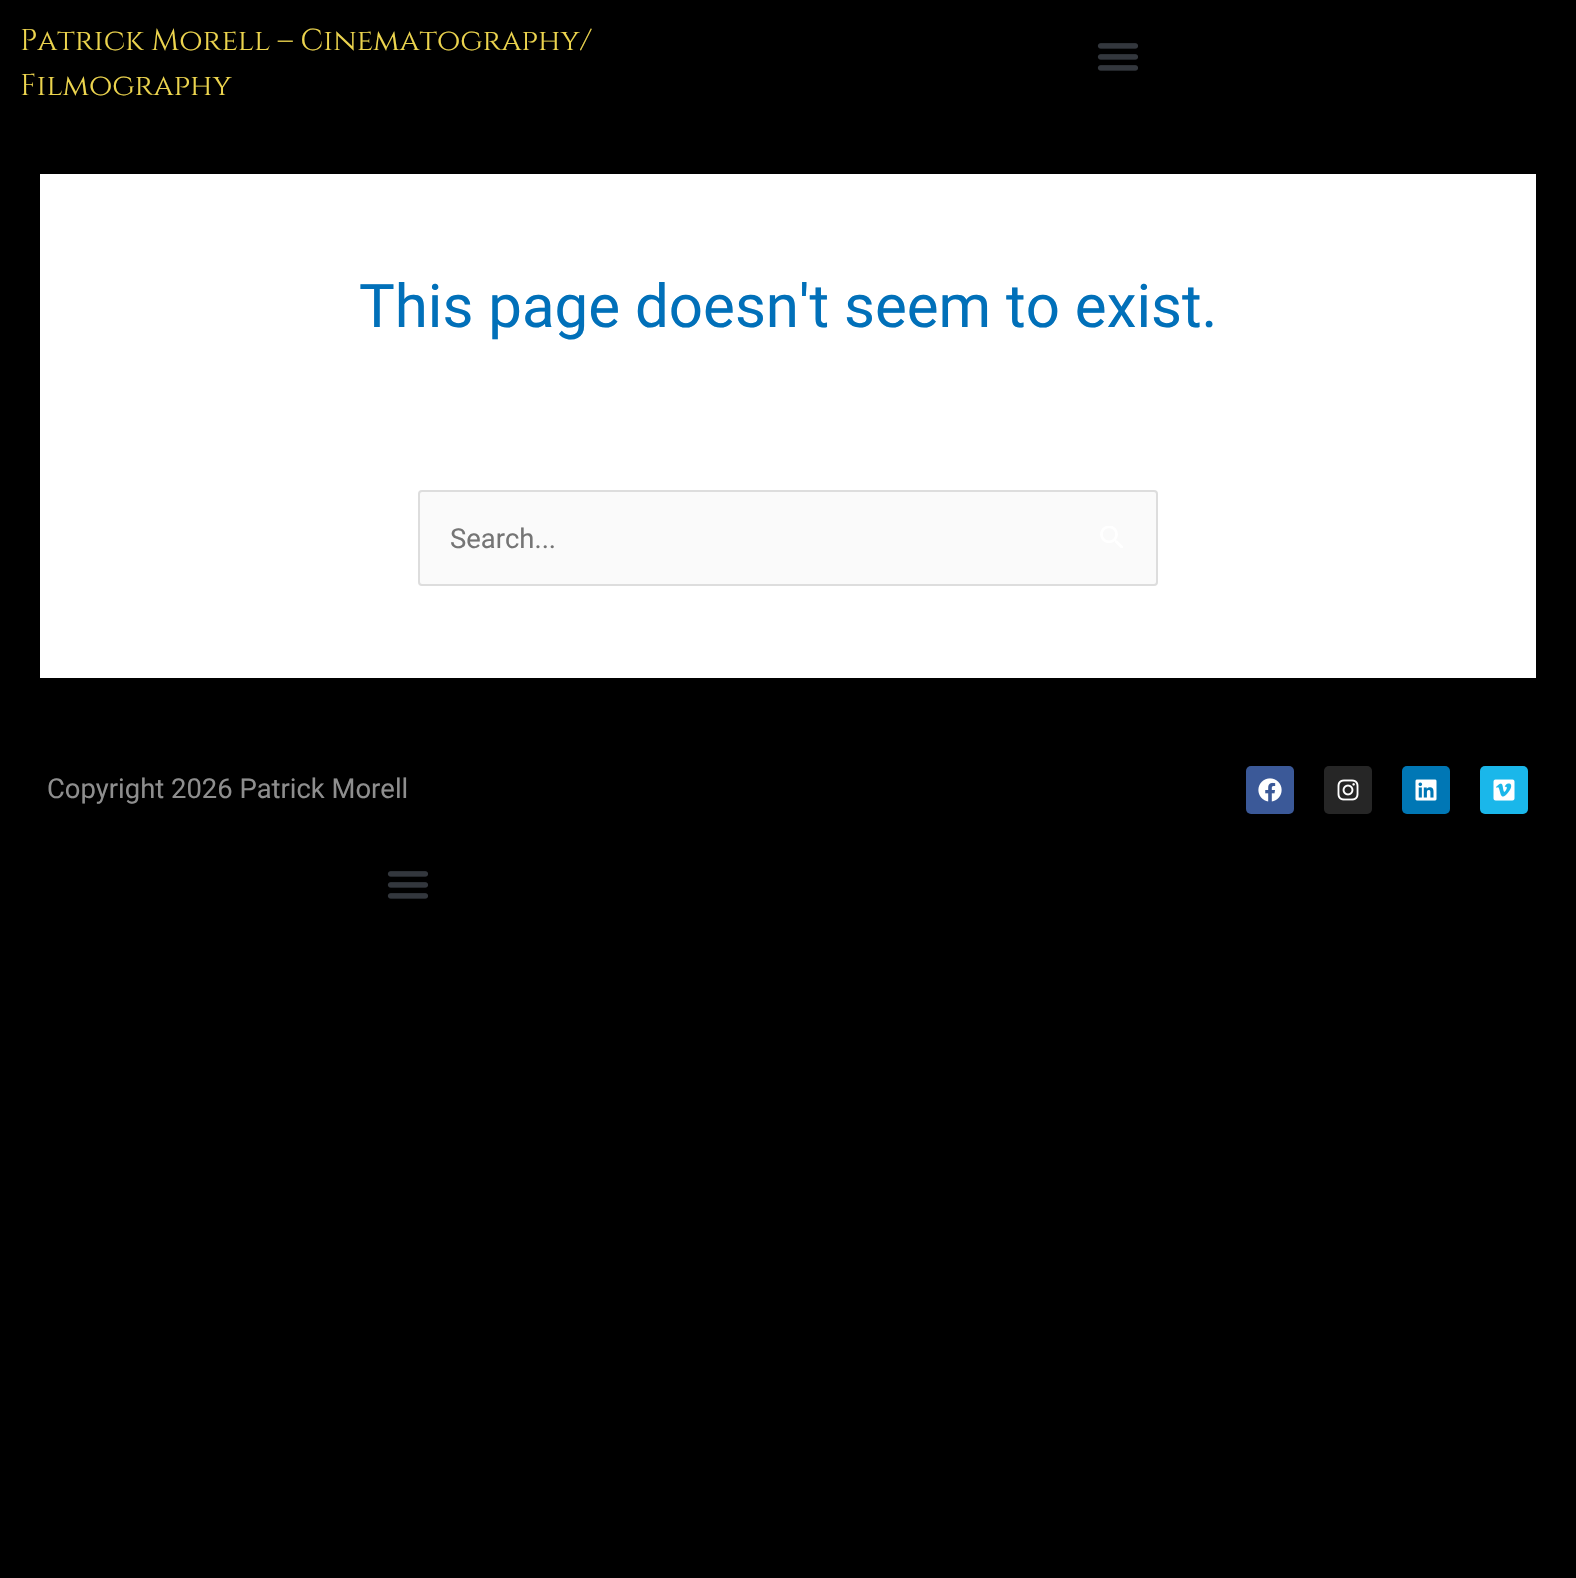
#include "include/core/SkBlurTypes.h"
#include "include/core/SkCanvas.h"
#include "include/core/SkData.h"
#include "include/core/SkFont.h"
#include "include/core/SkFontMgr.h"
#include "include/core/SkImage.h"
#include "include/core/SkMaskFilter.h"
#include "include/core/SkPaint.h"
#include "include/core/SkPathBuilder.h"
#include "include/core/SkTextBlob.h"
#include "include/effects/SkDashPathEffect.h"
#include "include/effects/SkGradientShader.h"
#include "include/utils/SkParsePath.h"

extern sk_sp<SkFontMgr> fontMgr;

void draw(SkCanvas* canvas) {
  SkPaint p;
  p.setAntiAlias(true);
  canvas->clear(SK_ColorBLACK);
  canvas->drawImageRect(SkImages::DeferredFromEncodedData(SkData::MakeFromFileName("images/1.png")), SkRect::MakeLTRB(1097, 43, 1138, 71), SkSamplingOptions());
  p.setColor(SK_ColorWHITE);
  canvas->drawRect(SkRect::MakeLTRB(40, 174, 1536, 678), p);
  p.setColor(SkColorSetRGB(250, 250, 250));
  canvas->drawRoundRect(SkRect::MakeLTRB(419, 491, 1157, 585), 3, 3, p);
  p.setStyle(SkPaint::kStroke_Style);
  p.setStrokeWidth(2);
  p.setColor(SkColorSetRGB(221, 221, 221));
  canvas->drawRoundRect(SkRect::MakeLTRB(419, 491, 1157, 585), 3, 3, p);
  canvas->drawImageRect(SkImages::DeferredFromEncodedData(SkData::MakeFromFileName("images/2.png")), SkRect::MakeLTRB(1100, 526, 1123, 548), SkSamplingOptions());
  canvas->drawImageRect(SkImages::DeferredFromEncodedData(SkData::MakeFromFileName("images/1.png")), SkRect::MakeLTRB(387, 871, 428, 899), SkSamplingOptions());
  p.setStyle(SkPaint::kFill_Style);
  p.setColor(SkColorSetRGB(59, 89, 152));
  canvas->drawRoundRect(SkRect::MakeLTRB(1246, 766, 1294, 814), 5, 5, p);
  canvas->drawImageRect(SkImages::DeferredFromEncodedData(SkData::MakeFromFileName("images/3.png")), SkRect::MakeLTRB(1258, 778, 1282, 802), SkSamplingOptions());
  p.setColor(SkColorSetRGB(38, 38, 38));
  canvas->drawRoundRect(SkRect::MakeLTRB(1324, 766, 1372, 814), 5, 5, p);
  canvas->drawImageRect(SkImages::DeferredFromEncodedData(SkData::MakeFromFileName("images/4.png")), SkRect::MakeLTRB(1337, 779, 1359, 801), SkSamplingOptions());
  p.setColor(SkColorSetRGB(0, 119, 181));
  canvas->drawRoundRect(SkRect::MakeLTRB(1402, 766, 1450, 814), 5, 5, p);
  canvas->drawImageRect(SkImages::DeferredFromEncodedData(SkData::MakeFromFileName("images/5.png")), SkRect::MakeLTRB(1415, 779, 1437, 801), SkSamplingOptions());
  p.setColor(SkColorSetRGB(26, 183, 234));
  canvas->drawRoundRect(SkRect::MakeLTRB(1480, 766, 1528, 814), 5, 5, p);
  canvas->drawImageRect(SkImages::DeferredFromEncodedData(SkData::MakeFromFileName("images/6.png")), SkRect::MakeLTRB(1493, 779, 1515, 801), SkSamplingOptions());
  SkFont font1(fontMgr->matchFamilyStyle("Cinzel", SkFontStyle::Normal()), 30.1f);
  font1.setSubpixel(true);
  p.setColor(SkColorSetRGB(236, 212, 78));
  canvas->drawString("Patrick Morell – Cinematography/", 20, 50, font1, p);
  canvas->drawString("Filmography", 20, 95, font1, p);
  SkFont font2(fontMgr->matchFamilyStyle("Roboto", SkFontStyle::Normal()), 60);
  font2.setSubpixel(true);
  p.setColor(SkColorSetRGB(1, 112, 185));
  canvas->drawString("This page doesn't seem to exist.", 359, 327, font2, p);
  SkFont font3(fontMgr->matchFamilyStyle("Roboto", SkFontStyle::Normal()), 27.4f);
  font3.setSubpixel(true);
  p.setColor(SkColorSetRGB(117, 117, 117));
  canvas->drawString("Search...", 450, 548, font3, p);
  p.setColor(SkColorSetRGB(142, 142, 142));
  canvas->drawString("Copyright 2026 Patrick Morell", 47, 798, font3, p);
}
